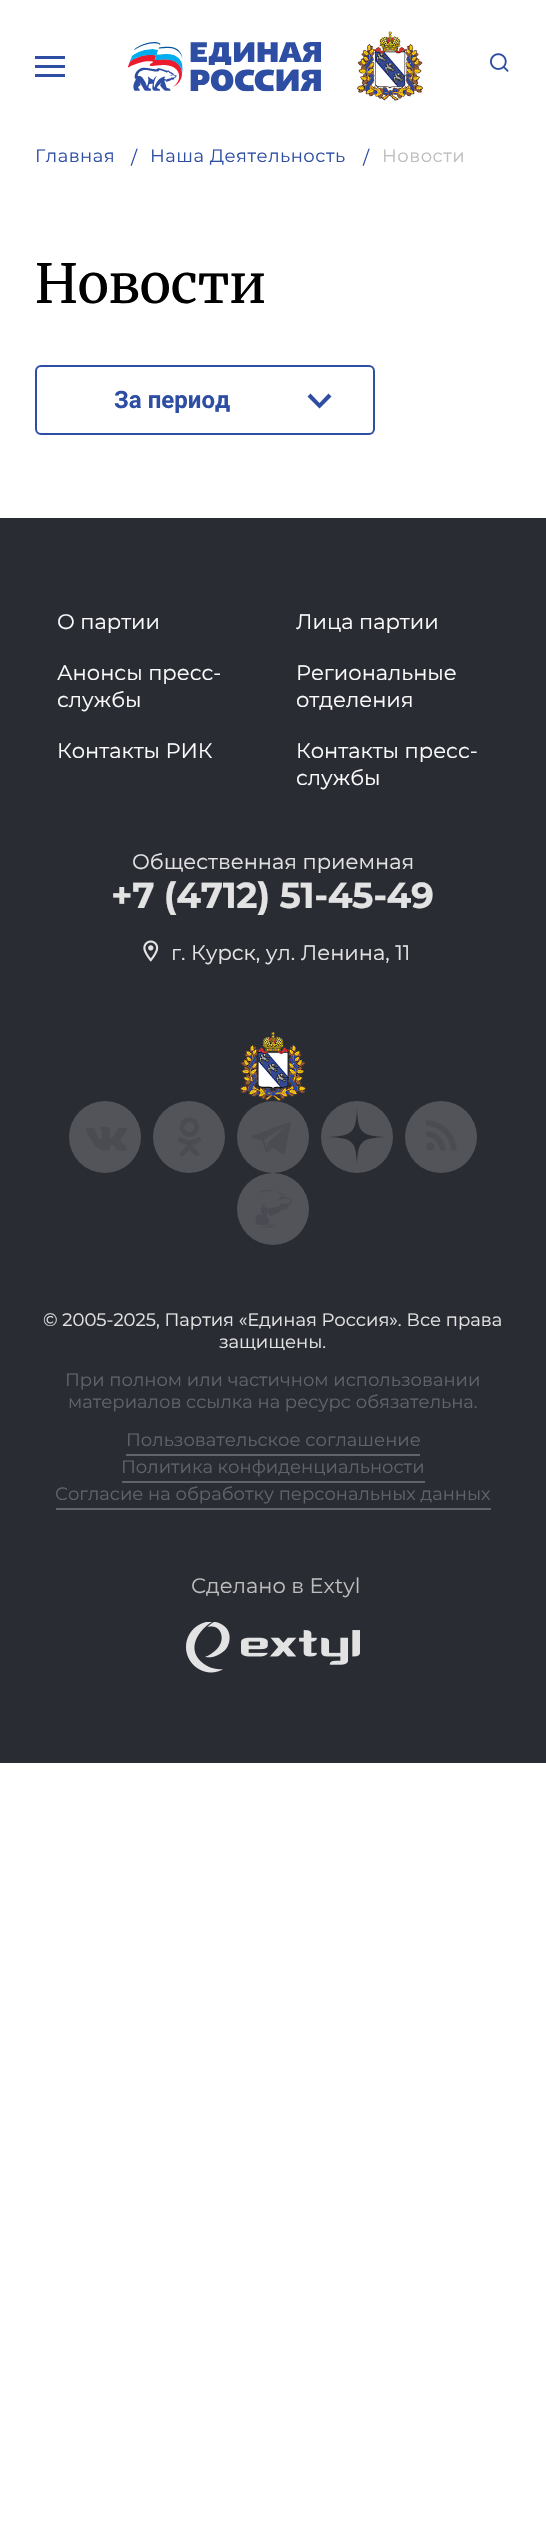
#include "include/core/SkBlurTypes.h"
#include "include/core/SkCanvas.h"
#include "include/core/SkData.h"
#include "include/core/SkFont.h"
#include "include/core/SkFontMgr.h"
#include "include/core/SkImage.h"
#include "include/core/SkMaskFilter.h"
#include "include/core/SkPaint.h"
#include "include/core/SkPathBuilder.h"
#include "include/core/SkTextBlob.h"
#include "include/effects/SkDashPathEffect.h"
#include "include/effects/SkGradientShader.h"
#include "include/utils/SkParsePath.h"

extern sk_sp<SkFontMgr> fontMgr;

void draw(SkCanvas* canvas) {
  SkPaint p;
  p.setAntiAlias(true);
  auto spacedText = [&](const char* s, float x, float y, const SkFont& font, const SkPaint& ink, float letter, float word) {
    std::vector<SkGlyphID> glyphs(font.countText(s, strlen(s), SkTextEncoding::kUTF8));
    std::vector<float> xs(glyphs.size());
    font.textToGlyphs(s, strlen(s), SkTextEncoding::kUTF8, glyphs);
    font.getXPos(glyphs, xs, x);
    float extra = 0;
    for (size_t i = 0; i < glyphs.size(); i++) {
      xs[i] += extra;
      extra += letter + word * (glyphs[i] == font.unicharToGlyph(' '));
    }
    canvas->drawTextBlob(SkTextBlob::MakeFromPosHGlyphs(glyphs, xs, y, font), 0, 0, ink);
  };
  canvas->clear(SK_ColorWHITE);
  p.setColor(SkColorSetRGB(46, 78, 164));
  canvas->drawRect(SkRect::MakeLTRB(35, 56, 65, 59), p);
  canvas->drawRect(SkRect::MakeLTRB(35, 65, 65, 68), p);
  canvas->drawRect(SkRect::MakeLTRB(35, 74, 65, 77), p);
  canvas->drawImageRect(SkImages::DeferredFromEncodedData(SkData::MakeFromFileName("images/1.png")), SkRect::MakeLTRB(128, 42, 321, 92), SkSamplingOptions());
  canvas->drawImageRect(SkImages::DeferredFromEncodedData(SkData::MakeFromFileName("images/2.png")), SkRect::MakeLTRB(357, 31, 423, 101), SkSamplingOptions());
  canvas->drawImageRect(SkImages::DeferredFromEncodedData(SkData::MakeFromFileName("images/3.png")), SkRect::MakeLTRB(490, 53, 509, 72), SkSamplingOptions());
  p.setStyle(SkPaint::kStroke_Style);
  p.setStrokeWidth(2);
  canvas->drawRoundRect(SkRect::MakeLTRB(36, 366, 374, 434), 5, 5, p);
  p.setStyle(SkPaint::kFill_Style);
  canvas->drawPath(SkPathBuilder().moveTo(328.5f, 393.5f).lineTo(319.5f, 403).lineTo(310.5f, 393.5f).lineTo(307.5f, 396.5f).lineTo(319.5f, 408.5f).lineTo(331.5f, 396.5f).close().detach(), p);
  p.setColor(SkColorSetRGB(42, 44, 52));
  canvas->drawRect(SkRect::MakeLTRB(0, 518, 546, 1763), p);
  canvas->drawImageRect(SkImages::DeferredFromEncodedData(SkData::MakeFromFileName("images/4.png")), SkRect::MakeLTRB(143, 940, 159, 962), SkSamplingOptions());
  canvas->drawImageRect(SkImages::DeferredFromEncodedData(SkData::MakeFromFileName("images/5.png")), SkRect::MakeLTRB(240, 1032, 306, 1101), SkSamplingOptions());
  p.setColor(SkColorSetRGB(82, 84, 90));
  canvas->drawCircle(105, 1137, 36, p);
  canvas->drawImageRect(SkImages::DeferredFromEncodedData(SkData::MakeFromFileName("images/6.png")), SkRect::MakeLTRB(86, 1127, 127, 1151), SkSamplingOptions());
  canvas->drawCircle(189, 1137, 36, p);
  canvas->drawImageRect(SkImages::DeferredFromEncodedData(SkData::MakeFromFileName("images/7.png")), SkRect::MakeLTRB(178, 1117, 201, 1156), SkSamplingOptions());
  canvas->drawCircle(273, 1137, 36, p);
  canvas->drawImageRect(SkImages::DeferredFromEncodedData(SkData::MakeFromFileName("images/8.png")), SkRect::MakeLTRB(252, 1122, 291, 1154), SkSamplingOptions());
  canvas->drawCircle(357, 1137, 36, p);
  p.setColor(SkColorSetRGB(42, 44, 52));
  canvas->drawPath(SkPathBuilder().moveTo(386, 1137).cubicTo(361, 1136, 358, 1133, 357, 1108).cubicTo(356, 1132, 353, 1136, 328, 1137).cubicTo(353, 1138, 356, 1141, 357, 1165).cubicTo(358, 1141, 361, 1138, 386, 1137).detach(), p);
  p.setColor(SkColorSetRGB(82, 84, 90));
  canvas->drawCircle(441, 1137, 36, p);
  canvas->drawImageRect(SkImages::DeferredFromEncodedData(SkData::MakeFromFileName("images/9.png")), SkRect::MakeLTRB(426, 1120, 457, 1151), SkSamplingOptions());
  canvas->drawCircle(273, 1209, 36, p);
  canvas->drawImageRect(SkImages::DeferredFromEncodedData(SkData::MakeFromFileName("images/10.png")), SkRect::MakeLTRB(255, 1190, 292, 1228), SkSamplingOptions());
  p.setColor(SkColorSetRGB(98, 99, 105));
  canvas->drawRect(SkRect::MakeLTRB(126, 1454, 420, 1456), p);
  canvas->drawRect(SkRect::MakeLTRB(122, 1481, 425, 1483), p);
  canvas->drawRect(SkRect::MakeLTRB(56, 1508, 491, 1510), p);
  canvas->drawImageRect(SkImages::DeferredFromEncodedData(SkData::MakeFromFileName("images/11.png")), SkRect::MakeLTRB(186, 1622, 360, 1673), SkSamplingOptions());
  SkFont font1(fontMgr->matchFamilyStyle("Montserrat", SkFontStyle::Normal()), 18);
  font1.setSubpixel(true);
  p.setColor(SkColorSetRGB(46, 78, 164));
  spacedText("Главная", 35, 162, font1, p, 0.5f, 0);
  spacedText("/", 131, 164, font1, p, 0.5f, 0);
  spacedText("Наша Деятельность", 150, 162, font1, p, 0.5f, 0);
  spacedText("/", 363, 164, font1, p, 0.5f, 0);
  p.setColor(SkColorSetRGB(189, 189, 189));
  spacedText("Новости", 382, 162, font1, p, 0.5f, 0);
  SkFont font2(fontMgr->matchFamilyStyle("Merriweather", SkFontStyle::Normal()), 54);
  font2.setSubpixel(true);
  p.setColor(SK_ColorBLACK);
  canvas->drawString("Новости", 35, 303, font2, p);
  SkFont font3(fontMgr->matchFamilyStyle("Roboto", SkFontStyle::Bold()), 24);
  font3.setSubpixel(true);
  p.setColor(SkColorSetRGB(46, 78, 164));
  canvas->drawString("За период", 114, 408, font3, p);
  SkFont font4(fontMgr->matchFamilyStyle("Montserrat", SkFontStyle::Normal()), 21);
  font4.setSubpixel(true);
  p.setColor(SkColorSetRGB(252, 252, 252));
  canvas->drawString("О партии", 57, 629, font4, p);
  canvas->drawString("Лица партии", 296, 629, font4, p);
  canvas->drawString("Анонсы пресс-", 57, 680, font4, p);
  canvas->drawString("службы", 57, 707, font4, p);
  canvas->drawString("Региональные", 296, 680, font4, p);
  canvas->drawString("отделения", 296, 707, font4, p);
  canvas->drawString("Контакты РИК", 57, 758, font4, p);
  canvas->drawString("Контакты пресс-", 296, 758, font4, p);
  canvas->drawString("службы", 296, 785, font4, p);
  p.setColor(SkColorSetRGB(227, 227, 227));
  canvas->drawString("Общественная приемная", 132, 869, font4, p);
  SkFont font5(fontMgr->matchFamilyStyle("Montserrat", SkFontStyle::Bold()), 36);
  font5.setSubpixel(true);
  spacedText("+7 (4712) 51-45-49", 111, 908, font5, p, -0.4f, 0);
  canvas->drawString("г. Курск, ул. Ленина, 11", 171, 960, font4, p);
  canvas->drawString("© 2005-2025, Партия «Единая Россия». Все права", 43, 1326, font1, p);
  canvas->drawString("защищены.", 219, 1348, font1, p);
  p.setColor(SkColorSetRGB(98, 99, 105));
  canvas->drawString("При полном или частичном использовании", 65, 1386, font1, p);
  canvas->drawString("материалов ссылка на ресурс обязательна.", 68, 1408, font1, p);
  canvas->drawString("Пользовательское соглашение", 126, 1446, font1, p);
  canvas->drawString("Политика конфиденциальности", 121, 1473, font1, p);
  canvas->drawString("Согласие на обработку персональных данных", 55, 1500, font1, p);
  p.setColor(SkColorSetRGB(189, 189, 189));
  canvas->drawString("Сделано в Extyl", 191, 1593, font4, p);
}
